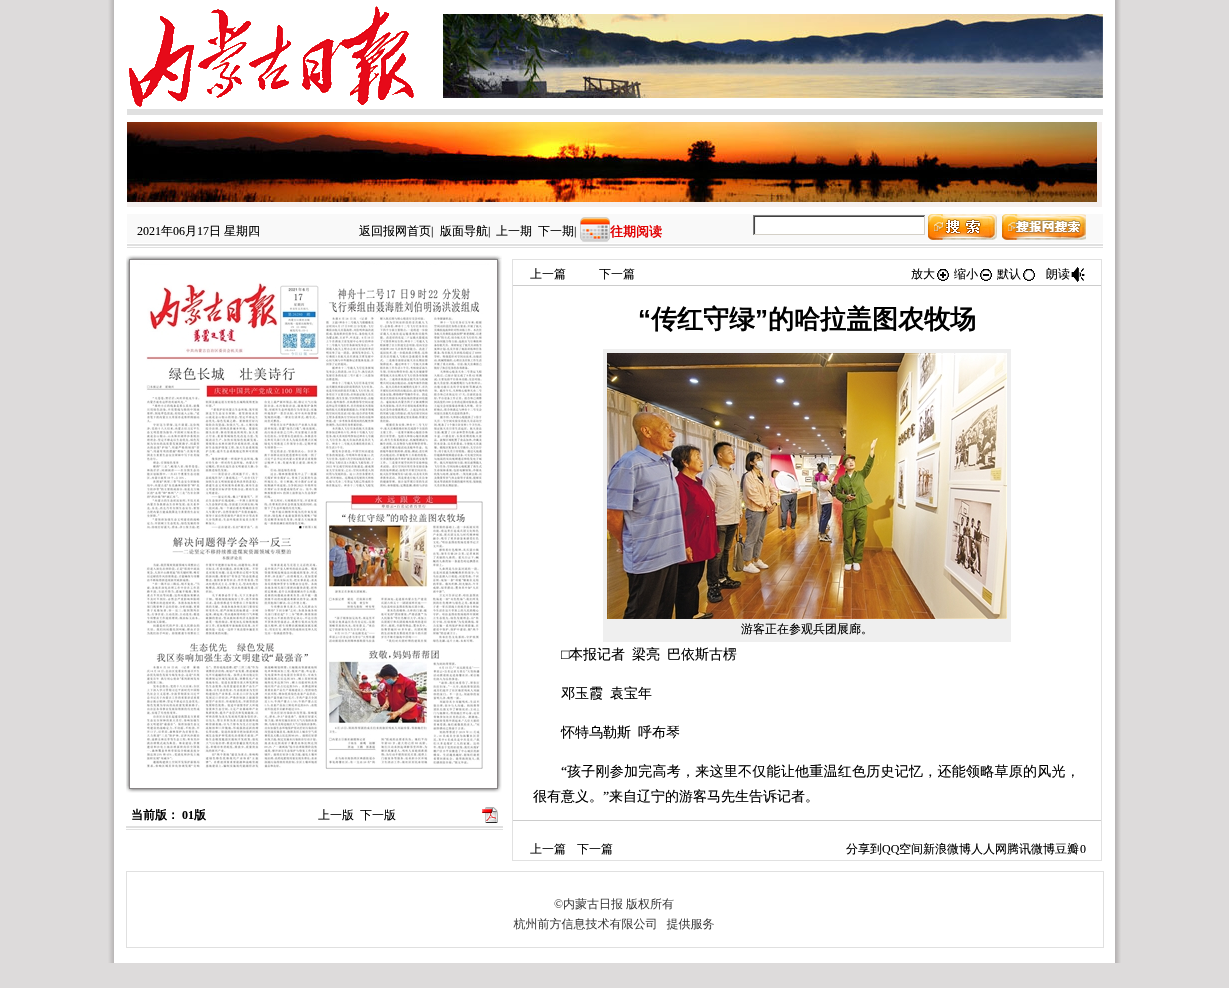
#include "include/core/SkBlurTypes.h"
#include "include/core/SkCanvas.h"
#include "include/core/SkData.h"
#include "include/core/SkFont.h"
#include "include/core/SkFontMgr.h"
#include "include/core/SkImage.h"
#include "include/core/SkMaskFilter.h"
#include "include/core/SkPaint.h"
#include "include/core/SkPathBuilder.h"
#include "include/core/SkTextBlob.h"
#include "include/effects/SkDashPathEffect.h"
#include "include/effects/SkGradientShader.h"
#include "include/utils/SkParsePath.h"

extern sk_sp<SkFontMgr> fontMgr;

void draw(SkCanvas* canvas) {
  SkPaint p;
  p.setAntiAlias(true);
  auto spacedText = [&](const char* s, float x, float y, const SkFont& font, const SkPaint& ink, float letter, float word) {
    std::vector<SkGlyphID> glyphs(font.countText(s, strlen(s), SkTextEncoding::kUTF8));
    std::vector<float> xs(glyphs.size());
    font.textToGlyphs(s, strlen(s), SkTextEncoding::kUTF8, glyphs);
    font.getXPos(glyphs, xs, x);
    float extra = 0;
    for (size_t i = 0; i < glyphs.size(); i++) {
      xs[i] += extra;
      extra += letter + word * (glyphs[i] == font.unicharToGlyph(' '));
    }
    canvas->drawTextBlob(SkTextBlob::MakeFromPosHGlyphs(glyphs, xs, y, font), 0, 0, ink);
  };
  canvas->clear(SkColorSetRGB(221, 219, 219));
  canvas->drawImageRect(SkImages::DeferredFromEncodedData(SkData::MakeFromFileName("images/1.png")), SkRect::MakeLTRB(102, 0, 1127, 963), SkSamplingOptions());
  canvas->drawImageRect(SkImages::DeferredFromEncodedData(SkData::MakeFromFileName("images/2.png")), SkRect::MakeLTRB(129, 6, 414, 107), SkSamplingOptions());
  canvas->drawImageRect(SkImages::DeferredFromEncodedData(SkData::MakeFromFileName("images/3.png")), SkRect::MakeLTRB(443, 14, 1103, 98), SkSamplingOptions());
  p.setColor(SkColorSetRGB(224, 224, 224));
  canvas->drawRect(SkRect::MakeLTRB(127, 109, 1103, 115), p);
  canvas->drawImageRect(SkImages::DeferredFromEncodedData(SkData::MakeFromFileName("images/4.png")), SkRect::MakeLTRB(127, 122, 1102, 207), SkSamplingOptions());
  canvas->drawImageRect(SkImages::DeferredFromEncodedData(SkData::MakeFromFileName("images/5.png")), SkRect::MakeLTRB(127, 214, 1103, 248), SkSamplingOptions());
  canvas->drawImageRect(SkImages::DeferredFromEncodedData(SkData::MakeFromFileName("images/6.png")), SkRect::MakeLTRB(580, 217, 610, 242), SkSamplingOptions());
  canvas->drawImageRect(SkImages::DeferredFromEncodedData(SkData::MakeFromFileName("images/7.png")), SkRect::MakeLTRB(753, 215, 925, 235), SkSamplingOptions());
  canvas->drawImageRect(SkImages::DeferredFromEncodedData(SkData::MakeFromFileName("images/8.png")), SkRect::MakeLTRB(928, 214, 997, 240), SkSamplingOptions());
  canvas->drawImageRect(SkImages::DeferredFromEncodedData(SkData::MakeFromFileName("images/9.png")), SkRect::MakeLTRB(1002, 214, 1086, 240), SkSamplingOptions());
  canvas->drawImageRect(SkImages::DeferredFromEncodedData(SkData::MakeFromFileName("images/10.png")), SkRect::MakeLTRB(126, 255, 502, 259), SkSamplingOptions());
  canvas->drawImageRect(SkImages::DeferredFromEncodedData(SkData::MakeFromFileName("images/11.png")), SkRect::MakeLTRB(126, 259, 502, 265), SkSamplingOptions());
  canvas->drawImageRect(SkImages::DeferredFromEncodedData(SkData::MakeFromFileName("images/12.png")), SkRect::MakeLTRB(126, 265, 502, 786), SkSamplingOptions());
  canvas->drawImageRect(SkImages::DeferredFromEncodedData(SkData::MakeFromFileName("images/13.png")), SkRect::MakeLTRB(146, 282, 483, 769), SkSamplingOptions());
  canvas->drawImageRect(SkImages::DeferredFromEncodedData(SkData::MakeFromFileName("images/14.png")), SkRect::MakeLTRB(126, 786, 502, 793), SkSamplingOptions());
  canvas->drawImageRect(SkImages::DeferredFromEncodedData(SkData::MakeFromFileName("images/15.png")), SkRect::MakeLTRB(126, 826, 503, 830), SkSamplingOptions());
  canvas->drawImageRect(SkImages::DeferredFromEncodedData(SkData::MakeFromFileName("images/16.png")), SkRect::MakeLTRB(482, 807, 498, 823), SkSamplingOptions());
  p.setStyle(SkPaint::kStroke_Style);
  p.setStrokeWidth(1);
  p.setColor(SkColorSetRGB(225, 225, 225));
  canvas->drawRect(SkRect::MakeLTRB(512.5f, 259.5f, 1101.5f, 860.5f), p);
  p.setStyle(SkPaint::kFill_Style);
  p.setColor(SkColorSetRGB(204, 204, 204));
  canvas->drawRect(SkRect::MakeLTRB(513, 285, 1101, 286), p);
  canvas->drawImageRect(SkImages::DeferredFromEncodedData(SkData::MakeFromFileName("images/17.png")), SkRect::MakeLTRB(937, 269, 949, 281), SkSamplingOptions());
  canvas->drawImageRect(SkImages::DeferredFromEncodedData(SkData::MakeFromFileName("images/18.png")), SkRect::MakeLTRB(980, 269, 992, 281), SkSamplingOptions());
  canvas->drawImageRect(SkImages::DeferredFromEncodedData(SkData::MakeFromFileName("images/19.png")), SkRect::MakeLTRB(1023, 269, 1035, 281), SkSamplingOptions());
  canvas->drawImageRect(SkImages::DeferredFromEncodedData(SkData::MakeFromFileName("images/20.png")), SkRect::MakeLTRB(1071, 267, 1085, 282), SkSamplingOptions());
  p.setColor(SkColorSetRGB(239, 239, 239));
  canvas->drawRect(SkRect::MakeLTRB(603, 349, 1011, 642), p);
  canvas->drawImageRect(SkImages::DeferredFromEncodedData(SkData::MakeFromFileName("images/21.png")), SkRect::MakeLTRB(607, 353, 1007, 619), SkSamplingOptions());
  p.setColor(SkColorSetRGB(204, 204, 204));
  canvas->drawRect(SkRect::MakeLTRB(513, 820, 1101, 821), p);
  p.setStyle(SkPaint::kStroke_Style);
  p.setColor(SkColorSetRGB(224, 224, 224));
  canvas->drawRect(SkRect::MakeLTRB(126.5f, 871.5f, 1103.5f, 947.5f), p);
  canvas->drawImageRect(SkImages::DeferredFromEncodedData(SkData::MakeFromFileName("images/22.png")), SkRect::MakeLTRB(513, 898, 714, 930), SkSamplingOptions());
  SkFont font1(fontMgr->matchFamilyStyle("Liberation Serif", SkFontStyle::Normal()), 12);
  font1.setSubpixel(true);
  p.setStyle(SkPaint::kFill_Style);
  p.setColor(SK_ColorBLACK);
  canvas->drawString("2021", 137, 235, font1, p);
  SkFont font2(fontMgr->matchFamilyStyle("WenQuanYi Zen Hei", SkFontStyle(500, SkFontStyle::kNormal_Width, SkFontStyle::kUpright_Slant)), 12);
  font2.setSubpixel(true);
  canvas->drawString("年", 161, 235, font2, p);
  canvas->drawString("06", 173, 235, font1, p);
  canvas->drawString("月", 185, 235, font2, p);
  canvas->drawString("17", 197, 235, font1, p);
  canvas->drawString("日", 209, 235, font2, p);
  canvas->drawString("星期四", 224, 235, font2, p);
  canvas->drawString("返回报网首页", 359, 235, font2, p);
  canvas->drawString("|", 431, 235, font1, p);
  canvas->drawString("版面导航", 440, 235, font2, p);
  canvas->drawString("|", 488, 235, font1, p);
  canvas->drawString("上一期", 496, 235, font2, p);
  canvas->drawString("下一期", 538, 235, font2, p);
  canvas->drawString("|", 574, 235, font1, p);
  SkFont font3(fontMgr->matchFamilyStyle("WenQuanYi Zen Hei", SkFontStyle::Bold()), 13);
  font3.setSubpixel(true);
  p.setColor(SkColorSetRGB(226, 2, 3));
  canvas->drawString("往期阅读", 610, 236, font3, p);
  SkFont font4(fontMgr->matchFamilyStyle("WenQuanYi Zen Hei", SkFontStyle::Bold()), 12);
  font4.setSubpixel(true);
  p.setColor(SK_ColorBLACK);
  canvas->drawString("当前版：", 131, 819, font4, p);
  SkFont font5(fontMgr->matchFamilyStyle("Liberation Serif", SkFontStyle::Bold()), 12);
  font5.setSubpixel(true);
  canvas->drawString("01", 182, 819, font5, p);
  canvas->drawString("版", 194, 819, font4, p);
  canvas->drawString("上一版", 318, 819, font2, p);
  canvas->drawString("下一版", 360, 819, font2, p);
  canvas->drawString("上一篇", 530, 278, font2, p);
  canvas->drawString("下一篇", 599, 278, font2, p);
  canvas->drawString("放大", 911, 278, font2, p);
  canvas->drawString("缩小", 954, 278, font2, p);
  canvas->drawString("默认", 997, 278, font2, p);
  canvas->drawString("朗读", 1046, 278, font2, p);
  SkFont font6(fontMgr->matchFamilyStyle("Liberation Sans", SkFontStyle::Bold()), 26);
  font6.setSubpixel(true);
  canvas->drawString("“", 638, 328, font6, p);
  SkFont font7(fontMgr->matchFamilyStyle("WenQuanYi Zen Hei", SkFontStyle::Bold()), 26);
  font7.setSubpixel(true);
  canvas->drawString("传红守绿", 651, 328, font7, p);
  canvas->drawString("”", 755, 328, font6, p);
  canvas->drawString("的哈拉盖图农牧场", 768, 328, font7, p);
  canvas->drawString("游客正在参观兵团展廊。", 741, 633, font2, p);
  SkFont font8(fontMgr->matchFamilyStyle("Liberation Serif", SkFontStyle::Normal()), 14);
  font8.setSubpixel(true);
  canvas->drawString("□", 561, 659, font8, p);
  SkFont font9(fontMgr->matchFamilyStyle("WenQuanYi Zen Hei", SkFontStyle(500, SkFontStyle::kNormal_Width, SkFontStyle::kUpright_Slant)), 14);
  font9.setSubpixel(true);
  canvas->drawString("本报记者", 569, 659, font9, p);
  canvas->drawString("梁亮", 632, 659, font9, p);
  canvas->drawString("巴依斯古楞", 667, 659, font9, p);
  canvas->drawString("邓玉霞", 561, 698, font9, p);
  canvas->drawString("袁宝年", 610, 698, font9, p);
  canvas->drawString("怀特乌勒斯", 561, 737, font9, p);
  canvas->drawString("呼布琴", 638, 737, font9, p);
  spacedText("“", 561, 776, font8, p, 0.25f, 0);
  spacedText("孩子刚参加完高考，来这里不仅能让他重温红色历史记忆，还能领略草原的风光，", 567, 776, font9, p, 0.25f, 0);
  canvas->drawString("很有意义。", 533, 801, font9, p);
  canvas->drawString("”", 603, 801, font8, p);
  canvas->drawString("来自辽宁的游客马先生告诉记者。", 609, 801, font9, p);
  canvas->drawString("上一篇", 530, 853, font2, p);
  canvas->drawString("下一篇", 577, 853, font2, p);
  canvas->drawString("分享到", 846, 853, font2, p);
  canvas->drawString("QQ", 882, 853, font1, p);
  canvas->drawString("空间新浪微博人人网腾讯微博豆瓣", 899, 853, font2, p);
  canvas->drawString("0", 1080, 853, font1, p);
}
